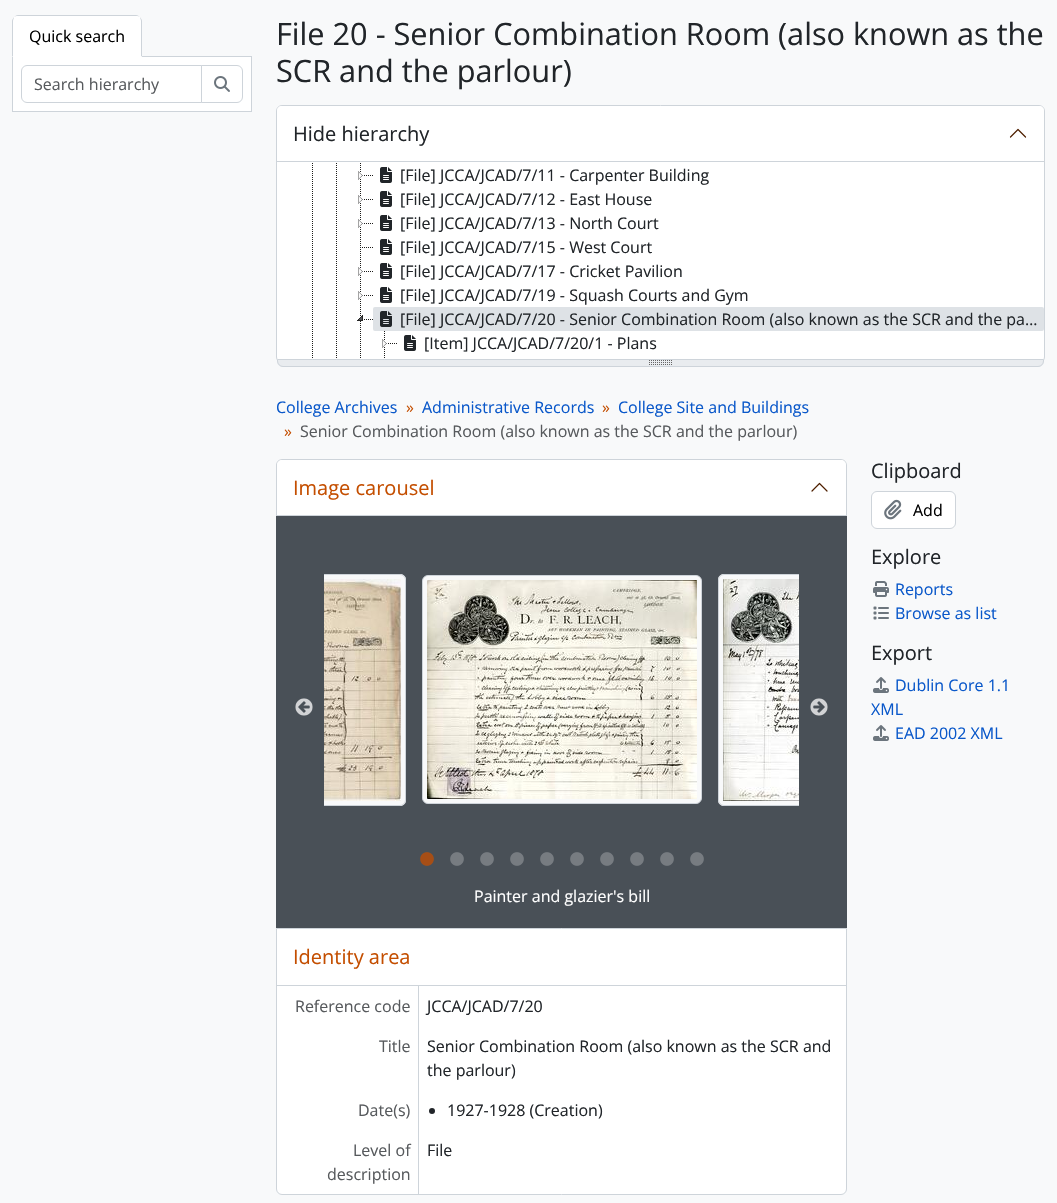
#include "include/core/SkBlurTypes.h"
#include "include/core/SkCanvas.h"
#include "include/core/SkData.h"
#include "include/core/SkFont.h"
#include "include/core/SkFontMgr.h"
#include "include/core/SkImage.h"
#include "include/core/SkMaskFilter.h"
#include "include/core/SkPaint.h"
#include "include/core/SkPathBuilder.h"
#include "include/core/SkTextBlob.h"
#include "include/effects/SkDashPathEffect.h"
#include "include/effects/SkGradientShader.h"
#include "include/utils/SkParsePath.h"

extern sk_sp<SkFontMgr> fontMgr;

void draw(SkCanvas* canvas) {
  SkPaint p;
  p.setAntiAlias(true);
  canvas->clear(SkColorSetRGB(248, 249, 250));
  p.setColor(SK_ColorWHITE);
  canvas->drawRect(SkRect::MakeLTRB(12.5f, 56.5f, 251.5f, 111.5f), p);
  p.setStyle(SkPaint::kStroke_Style);
  p.setStrokeWidth(1);
  p.setColor(SkColorSetRGB(206, 212, 218));
  canvas->drawRect(SkRect::MakeLTRB(12.5f, 56.5f, 251.5f, 111.5f), p);
  p.setStyle(SkPaint::kFill_Style);
  p.setColor(SK_ColorWHITE);
  canvas->drawPath(SkPathBuilder().moveTo(18, 15).lineTo(136, 15).cubicTo(139.5f, 15, 142, 17.5f, 142, 21).lineTo(142, 57).lineTo(12, 57).lineTo(12, 21).cubicTo(12, 17.5f, 14.5f, 15, 18, 15).close().detach(), p);
  p.setColor(SkColorSetRGB(206, 212, 218));
  canvas->drawPath(SkPathBuilder().moveTo(18, 15).cubicTo(16, 15, 15, 16, 14, 17).cubicTo(15, 16, 16, 16, 18, 16).lineTo(136, 16).cubicTo(138, 16, 139, 16, 140, 17).cubicTo(139, 16, 138, 15, 136, 15).close().detach(), p);
  canvas->drawPath(SkPathBuilder().moveTo(142, 57).lineTo(142, 21).cubicTo(142, 20, 141, 18, 140, 17).cubicTo(140, 18, 141, 20, 141, 21).lineTo(141, 56).close().detach(), p);
  p.setColor(SK_ColorWHITE);
  canvas->drawPath(SkPathBuilder().moveTo(142, 57).lineTo(141, 56).lineTo(13, 56).lineTo(12, 57).close().detach(), p);
  p.setColor(SkColorSetRGB(206, 212, 218));
  canvas->drawPath(SkPathBuilder().moveTo(12, 57).lineTo(13, 56).lineTo(13, 21).cubicTo(13, 20, 14, 18, 14, 17).cubicTo(13, 18, 12, 20, 12, 21).close().detach(), p);
  p.setStyle(SkPaint::kStroke_Style);
  canvas->drawPath(SkPathBuilder().moveTo(27, 65.5f).lineTo(201.5f, 65.5f).lineTo(201.5f, 102.5f).lineTo(27, 102.5f).cubicTo(24, 102.5f, 21.5f, 100, 21.5f, 97).lineTo(21.5f, 71).cubicTo(21.5f, 68, 24, 65.5f, 27, 65.5f).close().detach(), p);
  p.setStyle(SkPaint::kFill_Style);
  p.setColor(SK_ColorWHITE);
  canvas->drawPath(SkPathBuilder().moveTo(201.5f, 65.5f).lineTo(237, 65.5f).cubicTo(240, 65.5f, 242.5f, 68, 242.5f, 71).lineTo(242.5f, 97).cubicTo(242.5f, 100, 240, 102.5f, 237, 102.5f).lineTo(201.5f, 102.5f).close().detach(), p);
  p.setStyle(SkPaint::kStroke_Style);
  p.setColor(SkColorSetRGB(206, 212, 218));
  canvas->drawPath(SkPathBuilder().moveTo(201.5f, 65.5f).lineTo(237, 65.5f).cubicTo(240, 65.5f, 242.5f, 68, 242.5f, 71).lineTo(242.5f, 97).cubicTo(242.5f, 100, 240, 102.5f, 237, 102.5f).lineTo(201.5f, 102.5f).close().detach(), p);
  canvas->drawImageRect(SkImages::DeferredFromEncodedData(SkData::MakeFromFileName("images/1.png")), SkRect::MakeLTRB(214, 76, 230, 92), SkSamplingOptions());
  p.setStyle(SkPaint::kFill_Style);
  p.setColor(SK_ColorWHITE);
  canvas->drawRoundRect(SkRect::MakeLTRB(276.5f, 105.5f, 1044.5f, 362.5f), 5.5f, 5.5f, p);
  p.setStyle(SkPaint::kStroke_Style);
  p.setColor(SkColorSetRGB(206, 212, 218));
  canvas->drawRoundRect(SkRect::MakeLTRB(276.5f, 105.5f, 1044.5f, 362.5f), 5.5f, 5.5f, p);
  p.setStyle(SkPaint::kFill_Style);
  p.setColor(SK_ColorWHITE);
  canvas->drawPath(SkPathBuilder().moveTo(282, 106).lineTo(1039, 106).cubicTo(1042, 106, 1044, 108, 1044, 111).lineTo(1044, 162).lineTo(277, 162).lineTo(277, 111).cubicTo(277, 108, 279, 106, 282, 106).close().detach(), p);
  p.setColor(SkColorSetRGB(206, 212, 218));
  canvas->drawRect(SkRect::MakeLTRB(277, 161, 1044, 162), p);
  p.setStyle(SkPaint::kStroke_Style);
  p.setStrokeWidth(1.2f);
  p.setStrokeCap(SkPaint::kRound_Cap);
  p.setStrokeJoin(SkPaint::kRound_Join);
  p.setColor(SkColorSetRGB(78, 31, 0));
  canvas->drawPath(SkPathBuilder().moveTo(1025.5f, 137).lineTo(1018, 129.5f).lineTo(1010.5f, 137).detach(), p);
  canvas->drawImageRect(SkImages::DeferredFromEncodedData(SkData::MakeFromFileName("images/2.png")), SkRect::MakeLTRB(312, 163, 313, 358), SkSamplingOptions());
  canvas->drawImageRect(SkImages::DeferredFromEncodedData(SkData::MakeFromFileName("images/2.png")), SkRect::MakeLTRB(336, 163, 337, 358), SkSamplingOptions());
  canvas->drawImageRect(SkImages::DeferredFromEncodedData(SkData::MakeFromFileName("images/3.png")), SkRect::MakeLTRB(360, 163, 361, 186), SkSamplingOptions());
  canvas->drawImageRect(SkImages::DeferredFromEncodedData(SkData::MakeFromFileName("images/4.png")), SkRect::MakeLTRB(358, 171, 373, 180), SkSamplingOptions());
  canvas->drawImageRect(SkImages::DeferredFromEncodedData(SkData::MakeFromFileName("images/5.png")), SkRect::MakeLTRB(380, 167, 392, 183), SkSamplingOptions());
  canvas->drawImageRect(SkImages::DeferredFromEncodedData(SkData::MakeFromFileName("images/3.png")), SkRect::MakeLTRB(360, 187, 361, 210), SkSamplingOptions());
  canvas->drawImageRect(SkImages::DeferredFromEncodedData(SkData::MakeFromFileName("images/4.png")), SkRect::MakeLTRB(358, 195, 373, 204), SkSamplingOptions());
  canvas->drawImageRect(SkImages::DeferredFromEncodedData(SkData::MakeFromFileName("images/5.png")), SkRect::MakeLTRB(380, 191, 392, 207), SkSamplingOptions());
  canvas->drawImageRect(SkImages::DeferredFromEncodedData(SkData::MakeFromFileName("images/3.png")), SkRect::MakeLTRB(360, 211, 361, 234), SkSamplingOptions());
  canvas->drawImageRect(SkImages::DeferredFromEncodedData(SkData::MakeFromFileName("images/4.png")), SkRect::MakeLTRB(358, 219, 373, 228), SkSamplingOptions());
  canvas->drawImageRect(SkImages::DeferredFromEncodedData(SkData::MakeFromFileName("images/5.png")), SkRect::MakeLTRB(380, 215, 392, 231), SkSamplingOptions());
  canvas->drawImageRect(SkImages::DeferredFromEncodedData(SkData::MakeFromFileName("images/3.png")), SkRect::MakeLTRB(360, 235, 361, 258), SkSamplingOptions());
  canvas->drawImageRect(SkImages::DeferredFromEncodedData(SkData::MakeFromFileName("images/6.png")), SkRect::MakeLTRB(362, 247, 373, 248), SkSamplingOptions());
  canvas->drawImageRect(SkImages::DeferredFromEncodedData(SkData::MakeFromFileName("images/5.png")), SkRect::MakeLTRB(380, 239, 392, 255), SkSamplingOptions());
  canvas->drawImageRect(SkImages::DeferredFromEncodedData(SkData::MakeFromFileName("images/3.png")), SkRect::MakeLTRB(360, 259, 361, 282), SkSamplingOptions());
  canvas->drawImageRect(SkImages::DeferredFromEncodedData(SkData::MakeFromFileName("images/4.png")), SkRect::MakeLTRB(358, 267, 373, 276), SkSamplingOptions());
  canvas->drawImageRect(SkImages::DeferredFromEncodedData(SkData::MakeFromFileName("images/5.png")), SkRect::MakeLTRB(380, 263, 392, 279), SkSamplingOptions());
  canvas->drawImageRect(SkImages::DeferredFromEncodedData(SkData::MakeFromFileName("images/3.png")), SkRect::MakeLTRB(360, 283, 361, 306), SkSamplingOptions());
  canvas->drawImageRect(SkImages::DeferredFromEncodedData(SkData::MakeFromFileName("images/4.png")), SkRect::MakeLTRB(358, 291, 373, 300), SkSamplingOptions());
  canvas->drawImageRect(SkImages::DeferredFromEncodedData(SkData::MakeFromFileName("images/5.png")), SkRect::MakeLTRB(380, 287, 392, 303), SkSamplingOptions());
  canvas->drawImageRect(SkImages::DeferredFromEncodedData(SkData::MakeFromFileName("images/7.png")), SkRect::MakeLTRB(360, 307, 361, 358), SkSamplingOptions());
  canvas->drawImageRect(SkImages::DeferredFromEncodedData(SkData::MakeFromFileName("images/8.png")), SkRect::MakeLTRB(357, 315, 373, 321), SkSamplingOptions());
  p.setStyle(SkPaint::kFill_Style);
  p.setColor(SkColorSetRGB(222, 226, 230));
  canvas->drawRoundRect(SkRect::MakeLTRB(373, 307, 1044, 331), 2, 2, p);
  canvas->drawImageRect(SkImages::DeferredFromEncodedData(SkData::MakeFromFileName("images/9.png")), SkRect::MakeLTRB(380, 311, 392, 327), SkSamplingOptions());
  canvas->drawImageRect(SkImages::DeferredFromEncodedData(SkData::MakeFromFileName("images/3.png")), SkRect::MakeLTRB(384, 331, 385, 354), SkSamplingOptions());
  canvas->drawImageRect(SkImages::DeferredFromEncodedData(SkData::MakeFromFileName("images/4.png")), SkRect::MakeLTRB(382, 339, 397, 348), SkSamplingOptions());
  canvas->drawImageRect(SkImages::DeferredFromEncodedData(SkData::MakeFromFileName("images/5.png")), SkRect::MakeLTRB(404, 335, 416, 351), SkSamplingOptions());
  canvas->drawImageRect(SkImages::DeferredFromEncodedData(SkData::MakeFromFileName("images/10.png")), SkRect::MakeLTRB(384, 355, 385, 358), SkSamplingOptions());
  p.setColor(SkColorSetRGB(233, 236, 239));
  canvas->drawPath(SkPathBuilder().moveTo(277, 359).lineTo(1044, 359).lineTo(1044, 361).cubicTo(1044, 364.5f, 1041.5f, 367, 1038, 367).lineTo(283, 367).cubicTo(279.5f, 367, 277, 364.5f, 277, 361).close().detach(), p);
  canvas->drawImageRect(SkImages::DeferredFromEncodedData(SkData::MakeFromFileName("images/11.png")), SkRect::MakeLTRB(649, 360, 672, 365), SkSamplingOptions());
  p.setStyle(SkPaint::kStroke_Style);
  p.setStrokeWidth(1);
  p.setStrokeCap(SkPaint::kButt_Cap);
  p.setStrokeJoin(SkPaint::kMiter_Join);
  p.setColor(SkColorSetRGB(206, 212, 218));
  canvas->drawPath(SkPathBuilder().moveTo(277.5f, 359.5f).lineTo(1043.5f, 359.5f).lineTo(1043.5f, 361).cubicTo(1043.5f, 364, 1041, 366.5f, 1038, 366.5f).lineTo(283, 366.5f).cubicTo(280, 366.5f, 277.5f, 364, 277.5f, 361).close().detach(), p);
  p.setStyle(SkPaint::kFill_Style);
  p.setColor(SK_ColorWHITE);
  canvas->drawRoundRect(SkRect::MakeLTRB(276, 459, 847, 928), 6, 6, p);
  p.setColor(SkColorSetRGB(206, 212, 218));
  canvas->drawPath(SkPathBuilder(SkPathFillType::kEvenOdd).moveTo(282, 459).lineTo(841, 459).cubicTo(844, 459, 847, 462, 847, 465).lineTo(847, 516).lineTo(276, 516).lineTo(276, 465).cubicTo(276, 462, 279, 459, 282, 459).close().moveTo(282, 460).lineTo(841, 460).cubicTo(844, 460, 846, 462, 846, 465).lineTo(846, 516).lineTo(277, 516).lineTo(277, 465).cubicTo(277, 462, 279, 460, 282, 460).close().detach(), p);
  p.setColor(SK_ColorWHITE);
  canvas->drawPath(SkPathBuilder().moveTo(283, 460).lineTo(840, 460).cubicTo(843.5f, 460, 846, 462.5f, 846, 466).lineTo(846, 516).lineTo(277, 516).lineTo(277, 466).cubicTo(277, 462.5f, 279.5f, 460, 283, 460).close().detach(), p);
  p.setColor(SkColorSetRGB(206, 212, 218));
  canvas->drawRect(SkRect::MakeLTRB(277, 515, 846, 516), p);
  p.setStyle(SkPaint::kStroke_Style);
  p.setStrokeWidth(1.2f);
  p.setStrokeCap(SkPaint::kRound_Cap);
  p.setStrokeJoin(SkPaint::kRound_Join);
  p.setColor(SkColorSetRGB(78, 31, 0));
  canvas->drawPath(SkPathBuilder().moveTo(827, 491).lineTo(819.5f, 483.5f).lineTo(812, 491).detach(), p);
  p.setStyle(SkPaint::kFill_Style);
  p.setColor(SkColorSetRGB(73, 80, 87));
  canvas->drawRect(SkRect::MakeLTRB(276, 516, 847, 928), p);
  p.setColor(SkColorSetRGB(248, 249, 250));
  canvas->drawPath(SkPathBuilder().moveTo(324, 574).lineTo(400, 574).cubicTo(403.5f, 574, 406, 576.5f, 406, 580).lineTo(406, 800).cubicTo(406, 803.5f, 403.5f, 806, 400, 806).lineTo(324, 806).close().detach(), p);
  canvas->drawImageRect(SkImages::DeferredFromEncodedData(SkData::MakeFromFileName("images/15.png")), SkRect::MakeLTRB(295, 698, 313, 716), SkSamplingOptions());
  canvas->save();
  canvas->clipRect(SkRect::MakeLTRB(324, 540, 799, 846));
  p.setStyle(SkPaint::kStroke_Style);
  p.setStrokeWidth(1);
  p.setStrokeCap(SkPaint::kButt_Cap);
  p.setStrokeJoin(SkPaint::kMiter_Join);
  p.setColor(SkColorSetRGB(206, 212, 218));
  canvas->drawRoundRect(SkRect::MakeLTRB(126.5f, 574.5f, 405.5f, 805.5f), 5.5f, 5.5f, p);
  canvas->restore();
  canvas->drawImageRect(SkImages::DeferredFromEncodedData(SkData::MakeFromFileName("images/12.png")), SkRect::MakeLTRB(324, 579, 401, 801), SkSamplingOptions());
  p.setStyle(SkPaint::kFill_Style);
  p.setColor(SkColorSetRGB(248, 249, 250));
  canvas->drawRoundRect(SkRect::MakeLTRB(422.5f, 575.5f, 701.5f, 803.5f), 5.5f, 5.5f, p);
  p.setStyle(SkPaint::kStroke_Style);
  p.setColor(SkColorSetRGB(206, 212, 218));
  canvas->drawRoundRect(SkRect::MakeLTRB(422.5f, 575.5f, 701.5f, 803.5f), 5.5f, 5.5f, p);
  canvas->drawImageRect(SkImages::DeferredFromEncodedData(SkData::MakeFromFileName("images/13.png")), SkRect::MakeLTRB(427, 580, 697, 799), SkSamplingOptions());
  p.setStyle(SkPaint::kFill_Style);
  p.setColor(SkColorSetRGB(248, 249, 250));
  canvas->drawPath(SkPathBuilder().moveTo(724, 574).lineTo(799, 574).lineTo(799, 806).lineTo(724, 806).cubicTo(720.5f, 806, 718, 803.5f, 718, 800).lineTo(718, 580).cubicTo(718, 576.5f, 720.5f, 574, 724, 574).close().detach(), p);
  canvas->drawImageRect(SkImages::DeferredFromEncodedData(SkData::MakeFromFileName("images/17.png")), SkRect::MakeLTRB(420, 852, 434, 866), SkSamplingOptions());
  canvas->drawImageRect(SkImages::DeferredFromEncodedData(SkData::MakeFromFileName("images/18.png")), SkRect::MakeLTRB(450, 852, 464, 866), SkSamplingOptions());
  canvas->drawImageRect(SkImages::DeferredFromEncodedData(SkData::MakeFromFileName("images/18.png")), SkRect::MakeLTRB(480, 852, 494, 866), SkSamplingOptions());
  canvas->drawImageRect(SkImages::DeferredFromEncodedData(SkData::MakeFromFileName("images/18.png")), SkRect::MakeLTRB(510, 852, 524, 866), SkSamplingOptions());
  canvas->drawImageRect(SkImages::DeferredFromEncodedData(SkData::MakeFromFileName("images/18.png")), SkRect::MakeLTRB(540, 852, 554, 866), SkSamplingOptions());
  canvas->drawImageRect(SkImages::DeferredFromEncodedData(SkData::MakeFromFileName("images/18.png")), SkRect::MakeLTRB(570, 852, 584, 866), SkSamplingOptions());
  canvas->drawImageRect(SkImages::DeferredFromEncodedData(SkData::MakeFromFileName("images/18.png")), SkRect::MakeLTRB(600, 852, 614, 866), SkSamplingOptions());
  canvas->drawImageRect(SkImages::DeferredFromEncodedData(SkData::MakeFromFileName("images/18.png")), SkRect::MakeLTRB(630, 852, 644, 866), SkSamplingOptions());
  canvas->drawImageRect(SkImages::DeferredFromEncodedData(SkData::MakeFromFileName("images/18.png")), SkRect::MakeLTRB(660, 852, 674, 866), SkSamplingOptions());
  canvas->drawImageRect(SkImages::DeferredFromEncodedData(SkData::MakeFromFileName("images/18.png")), SkRect::MakeLTRB(690, 852, 704, 866), SkSamplingOptions());
  p.setColor(SK_ColorWHITE);
  canvas->drawPath(SkPathBuilder().moveTo(276.5f, 928.5f).lineTo(846.5f, 928.5f).lineTo(846.5f, 1189).cubicTo(846.5f, 1192, 844, 1194.5f, 841, 1194.5f).lineTo(282, 1194.5f).cubicTo(279, 1194.5f, 276.5f, 1192, 276.5f, 1189).close().detach(), p);
  p.setStyle(SkPaint::kStroke_Style);
  p.setColor(SkColorSetRGB(206, 212, 218));
  canvas->drawPath(SkPathBuilder().moveTo(276.5f, 928.5f).lineTo(846.5f, 928.5f).lineTo(846.5f, 1189).cubicTo(846.5f, 1192, 844, 1194.5f, 841, 1194.5f).lineTo(282, 1194.5f).cubicTo(279, 1194.5f, 276.5f, 1192, 276.5f, 1189).close().detach(), p);
  p.setStyle(SkPaint::kFill_Style);
  canvas->drawRect(SkRect::MakeLTRB(277, 985, 846, 986), p);
  canvas->drawRect(SkRect::MakeLTRB(418, 986, 419, 1194), p);
  p.setColor(SkColorSetRGB(33, 37, 41));
  canvas->drawCircle(432, 1111, 3, p);
  p.setColor(SK_ColorWHITE);
  canvas->drawRoundRect(SkRect::MakeLTRB(871.5f, 491.5f, 955.5f, 528.5f), 5.5f, 5.5f, p);
  p.setStyle(SkPaint::kStroke_Style);
  p.setColor(SkColorSetRGB(206, 212, 218));
  canvas->drawRoundRect(SkRect::MakeLTRB(871.5f, 491.5f, 955.5f, 528.5f), 5.5f, 5.5f, p);
  canvas->drawImageRect(SkImages::DeferredFromEncodedData(SkData::MakeFromFileName("images/19.png")), SkRect::MakeLTRB(884, 499, 902, 520), SkSamplingOptions());
  canvas->drawImageRect(SkImages::DeferredFromEncodedData(SkData::MakeFromFileName("images/20.png")), SkRect::MakeLTRB(873, 581, 889, 597), SkSamplingOptions());
  canvas->drawImageRect(SkImages::DeferredFromEncodedData(SkData::MakeFromFileName("images/21.png")), SkRect::MakeLTRB(873, 606, 889, 620), SkSamplingOptions());
  canvas->drawImageRect(SkImages::DeferredFromEncodedData(SkData::MakeFromFileName("images/22.png")), SkRect::MakeLTRB(873, 677, 889, 693), SkSamplingOptions());
  canvas->drawImageRect(SkImages::DeferredFromEncodedData(SkData::MakeFromFileName("images/22.png")), SkRect::MakeLTRB(873, 725, 889, 741), SkSamplingOptions());
  SkFont font1(fontMgr->matchFamilyStyle("Open Sans", SkFontStyle::Normal()), 16);
  font1.setSubpixel(true);
  p.setStyle(SkPaint::kFill_Style);
  p.setColor(SK_ColorBLACK);
  canvas->drawString("Quick search", 29, 42, font1, p);
  p.setColor(SkColorSetRGB(87, 90, 93));
  canvas->drawString("Search hierarchy", 34, 90, font1, p);
  SkFont font2(fontMgr->matchFamilyStyle("Open Sans", SkFontStyle::Normal()), 30.7f);
  font2.setSubpixel(true);
  p.setColor(SkColorSetRGB(33, 37, 41));
  canvas->drawString("File 20 - Senior Combination Room (also known as the", 276, 45, font2, p);
  canvas->drawString("SCR and the parlour)", 276, 82, font2, p);
  SkFont font3(fontMgr->matchFamilyStyle("Open Sans", SkFontStyle::Normal()), 20);
  font3.setSubpixel(true);
  canvas->drawString("Hide hierarchy", 293, 141, font3, p);
  canvas->drawString("[File] JCCA/JCAD/7/11 - Carpenter Building", 400, 181, font1, p);
  canvas->drawString("[File] JCCA/JCAD/7/12 - East House", 400, 205, font1, p);
  canvas->drawString("[File] JCCA/JCAD/7/13 - North Court", 400, 229, font1, p);
  canvas->drawString("[File] JCCA/JCAD/7/15 - West Court", 400, 253, font1, p);
  canvas->drawString("[File] JCCA/JCAD/7/17 - Cricket Pavilion", 400, 277, font1, p);
  canvas->drawString("[File] JCCA/JCAD/7/19 - Squash Courts and Gym", 400, 301, font1, p);
  canvas->drawString("[File] JCCA/JCAD/7/20 - Senior Combination Room (also known as the SCR and the pa…", 400, 325, font1, p);
  canvas->drawString("[Item] JCCA/JCAD/7/20/1 - Plans", 424, 349, font1, p);
  p.setColor(SkColorSetRGB(10, 88, 202));
  canvas->drawString("College Archives", 276, 413, font1, p);
  p.setColor(SkColorSetRGB(196, 78, 0));
  canvas->drawString("»", 406, 413, font1, p);
  p.setColor(SkColorSetRGB(10, 88, 202));
  canvas->drawString("Administrative Records", 422, 413, font1, p);
  p.setColor(SkColorSetRGB(196, 78, 0));
  canvas->drawString("»", 602, 413, font1, p);
  p.setColor(SkColorSetRGB(10, 88, 202));
  canvas->drawString("College Site and Buildings", 618, 413, font1, p);
  p.setColor(SkColorSetRGB(196, 78, 0));
  canvas->drawString("»", 284, 437, font1, p);
  p.setColor(SkColorSetRGB(87, 90, 93));
  canvas->drawString("Senior Combination Room (also known as the SCR and the parlour)", 300, 437, font1, p);
  p.setColor(SkColorSetRGB(196, 78, 0));
  canvas->drawString("Image carousel", 293, 495, font3, p);
  p.setColor(SK_ColorWHITE);
  canvas->drawString("Painter and glazier's bill", 474, 902, font1, p);
  p.setColor(SkColorSetRGB(196, 78, 0));
  canvas->drawString("Identity area", 293, 964, font3, p);
  p.setColor(SkColorSetRGB(87, 90, 93));
  canvas->drawString("Reference code", 295, 1012, font1, p);
  p.setColor(SkColorSetRGB(33, 37, 41));
  canvas->drawString("JCCA/JCAD/7/20", 427, 1012, font1, p);
  p.setColor(SkColorSetRGB(87, 90, 93));
  canvas->drawString("Title", 379, 1052, font1, p);
  p.setColor(SkColorSetRGB(33, 37, 41));
  canvas->drawString("Senior Combination Room (also known as the SCR and", 427, 1052, font1, p);
  canvas->drawString("the parlour)", 427, 1076, font1, p);
  p.setColor(SkColorSetRGB(87, 90, 93));
  canvas->drawString("Date(s)", 358, 1116, font1, p);
  p.setColor(SkColorSetRGB(33, 37, 41));
  canvas->drawString("1927-1928 (Creation)", 447, 1116, font1, p);
  p.setColor(SkColorSetRGB(87, 90, 93));
  canvas->drawString("Level of", 353, 1156, font1, p);
  canvas->drawString("description", 327, 1180, font1, p);
  p.setColor(SkColorSetRGB(33, 37, 41));
  canvas->drawString("File", 427, 1156, font1, p);
  canvas->drawString("Clipboard", 871, 478, font3, p);
  p.setColor(SK_ColorBLACK);
  canvas->drawString("Add", 913, 516, font1, p);
  p.setColor(SkColorSetRGB(33, 37, 41));
  canvas->drawString("Explore", 871, 564, font3, p);
  p.setColor(SkColorSetRGB(10, 88, 202));
  canvas->drawString("Reports", 895, 595, font1, p);
  canvas->drawString("Browse as list", 895, 619, font1, p);
  p.setColor(SkColorSetRGB(33, 37, 41));
  canvas->drawString("Export", 871, 660, font3, p);
  p.setColor(SkColorSetRGB(10, 88, 202));
  canvas->drawString("Dublin Core 1.1", 895, 691, font1, p);
  canvas->drawString("XML", 871, 715, font1, p);
  canvas->drawString("EAD 2002 XML", 895, 739, font1, p);
  canvas->save();
  canvas->clipRect(SkRect::MakeLTRB(324, 540, 799, 846));
  p.setStyle(SkPaint::kStroke_Style);
  p.setColor(SkColorSetRGB(206, 212, 218));
  canvas->drawRoundRect(SkRect::MakeLTRB(718.5f, 574.5f, 997.5f, 805.5f), 5.5f, 5.5f, p);
  canvas->restore();
  canvas->drawImageRect(SkImages::DeferredFromEncodedData(SkData::MakeFromFileName("images/16.png")), SkRect::MakeLTRB(810, 698, 828, 716), SkSamplingOptions());
  canvas->drawImageRect(SkImages::DeferredFromEncodedData(SkData::MakeFromFileName("images/14.png")), SkRect::MakeLTRB(723, 579, 799, 801), SkSamplingOptions());
}
